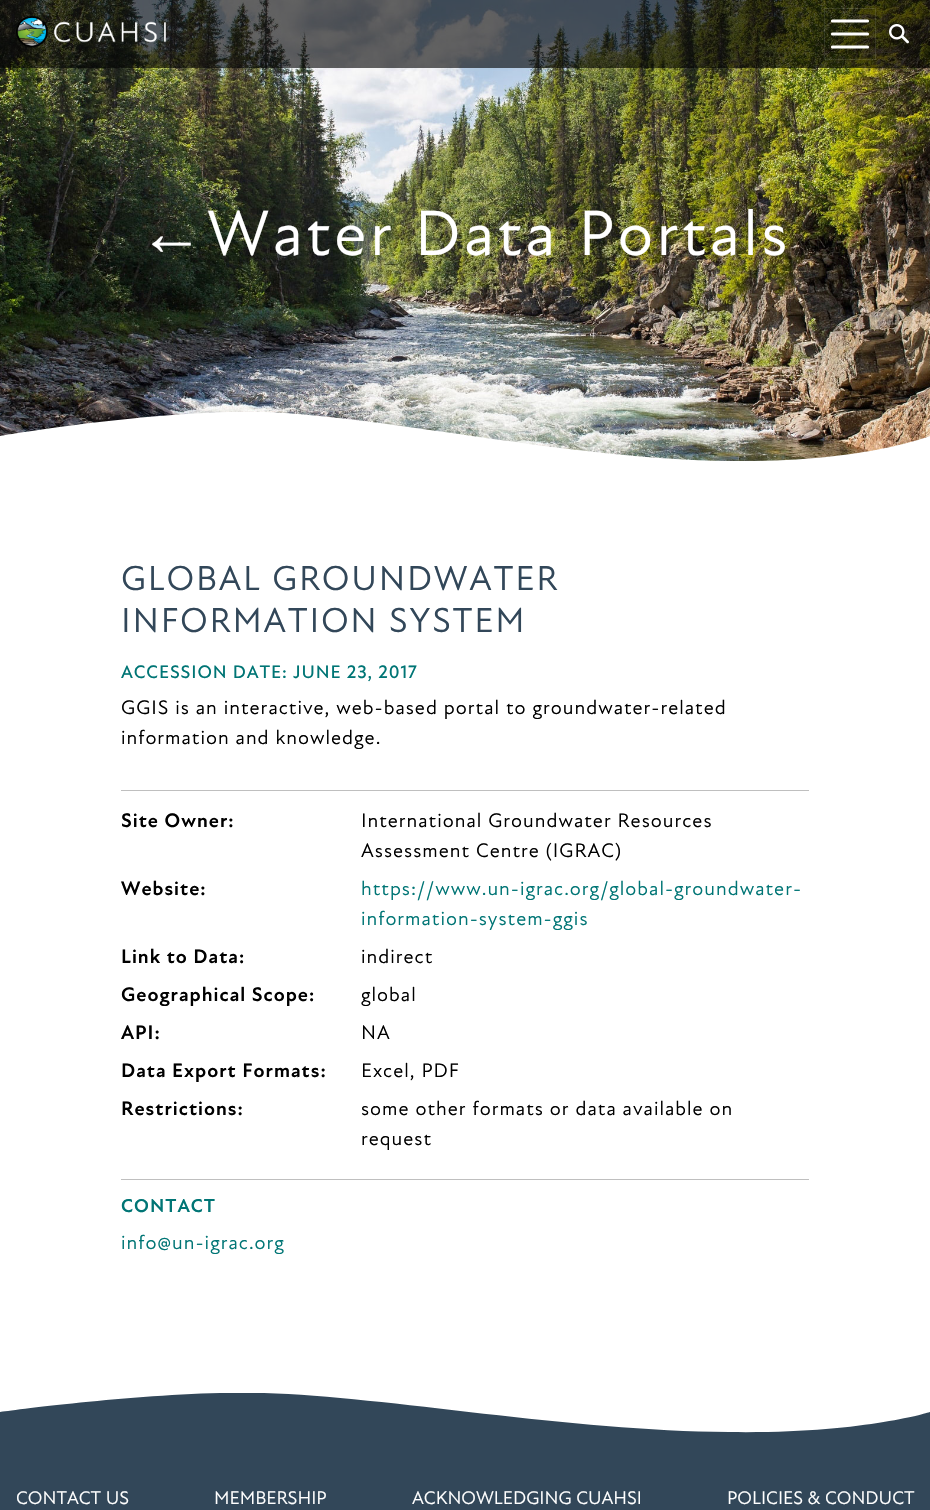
#include "include/core/SkBlurTypes.h"
#include "include/core/SkCanvas.h"
#include "include/core/SkData.h"
#include "include/core/SkFont.h"
#include "include/core/SkFontMgr.h"
#include "include/core/SkImage.h"
#include "include/core/SkMaskFilter.h"
#include "include/core/SkPaint.h"
#include "include/core/SkPathBuilder.h"
#include "include/core/SkTextBlob.h"
#include "include/effects/SkDashPathEffect.h"
#include "include/effects/SkGradientShader.h"
#include "include/utils/SkParsePath.h"

extern sk_sp<SkFontMgr> fontMgr;

void draw(SkCanvas* canvas) {
  SkPaint p;
  p.setAntiAlias(true);
  auto spacedText = [&](const char* s, float x, float y, const SkFont& font, const SkPaint& ink, float letter, float word) {
    std::vector<SkGlyphID> glyphs(font.countText(s, strlen(s), SkTextEncoding::kUTF8));
    std::vector<float> xs(glyphs.size());
    font.textToGlyphs(s, strlen(s), SkTextEncoding::kUTF8, glyphs);
    font.getXPos(glyphs, xs, x);
    float extra = 0;
    for (size_t i = 0; i < glyphs.size(); i++) {
      xs[i] += extra;
      extra += letter + word * (glyphs[i] == font.unicharToGlyph(' '));
    }
    canvas->drawTextBlob(SkTextBlob::MakeFromPosHGlyphs(glyphs, xs, y, font), 0, 0, ink);
  };
  canvas->clear(SK_ColorWHITE);
  canvas->drawImageRect(SkImages::DeferredFromEncodedData(SkData::MakeFromFileName("images/3.png")), SkRect::MakeLTRB(0, 0, 930, 462), SkSamplingOptions());
  p.setColor(SkColorSetARGB(156, 0, 0, 0));
  canvas->drawRect(SkRect::MakeLTRB(0, 0, 930, 68), p);
  canvas->drawImageRect(SkImages::DeferredFromEncodedData(SkData::MakeFromFileName("images/1.png")), SkRect::MakeLTRB(16, 16, 166, 48), SkSamplingOptions());
  p.setStyle(SkPaint::kStroke_Style);
  p.setStrokeWidth(1);
  p.setColor(SkColorSetARGB(26, 255, 255, 255));
  canvas->drawRect(SkRect::MakeLTRB(824.5f, 8.5f, 875.5f, 59.5f), p);
  p.setStrokeWidth(3.2f);
  p.setStrokeCap(SkPaint::kRound_Cap);
  p.setColor(SK_ColorWHITE);
  canvas->drawPath(SkPathBuilder().moveTo(832.5f, 21).lineTo(867.5f, 21).moveTo(832.5f, 34).lineTo(867.5f, 34).moveTo(832.5f, 47).lineTo(867.5f, 47).detach(), p);
  canvas->drawImageRect(SkImages::DeferredFromEncodedData(SkData::MakeFromFileName("images/2.png")), SkRect::MakeLTRB(889, 24, 909, 44), SkSamplingOptions());
  canvas->save();
  canvas->clipRect(SkRect::MakeLTRB(0, 412, 930, 465));
  p.setStyle(SkPaint::kFill_Style);
  canvas->drawPath(SkPathBuilder().moveTo(930, 788).lineTo(930, 436).cubicTo(930, 436, 862, 463, 729, 461).cubicTo(568, 459, 391, 417, 264, 412).cubicTo(158, 409, 0, 436, 0, 436).lineTo(0, 788).close().detach(), p);
  canvas->restore();
  p.setColor(SkColorSetRGB(191, 191, 191));
  canvas->drawRect(SkRect::MakeLTRB(121, 790, 809, 791), p);
  canvas->drawRect(SkRect::MakeLTRB(121, 1179, 809, 1180), p);
  canvas->save();
  canvas->clipRect(SkRect::MakeLTRB(0, 1393, 930, 1438));
  p.setColor(SkColorSetRGB(50, 71, 89));
  canvas->drawPath(SkPathBuilder().moveTo(930, 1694).lineTo(930, 1412).cubicTo(930, 1412, 862, 1434, 729, 1432).cubicTo(568, 1431, 391, 1397, 264, 1393).cubicTo(158, 1390, 0, 1412, 0, 1412).lineTo(0, 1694).close().detach(), p);
  canvas->restore();
  canvas->drawRect(SkRect::MakeLTRB(0, 1438, 930, 1510), p);
  SkFont font1(fontMgr->matchFamilyStyle("Liberation Sans", SkFontStyle::Normal()), 65);
  font1.setSubpixel(true);
  p.setColor(SK_ColorWHITE);
  spacedText("←", 139, 255, font1, p, 3.25f, 0);
  SkFont font2(fontMgr->matchFamilyStyle("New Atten", SkFontStyle::Normal()), 65);
  font2.setSubpixel(true);
  spacedText("Water Data Portals", 207, 255, font2, p, 3.25f, 0);
  SkFont font3(fontMgr->matchFamilyStyle("New Atten", SkFontStyle::Normal()), 35.25f);
  font3.setSubpixel(true);
  p.setColor(SkColorSetRGB(50, 71, 89));
  spacedText("GLOBAL GROUNDWATER", 121, 590, font3, p, 1.75f, 0);
  spacedText("INFORMATION SYSTEM", 121, 632, font3, p, 1.75f, 0);
  SkFont font4(fontMgr->matchFamilyStyle("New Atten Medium", SkFontStyle(500, SkFontStyle::kNormal_Width, SkFontStyle::kUpright_Slant)), 18.4f);
  font4.setSubpixel(true);
  p.setColor(SkColorSetRGB(0, 117, 117));
  spacedText("ACCESSION DATE: JUNE 23, 2017", 121, 678, font4, p, 0.9f, 0);
  SkFont font5(fontMgr->matchFamilyStyle("New Atten", SkFontStyle::Normal()), 20);
  font5.setSubpixel(true);
  p.setColor(SK_ColorBLACK);
  spacedText("GGIS is an interactive, web-based portal to groundwater-related", 121, 714, font5, p, 1, 0);
  spacedText("information and knowledge.", 121, 744, font5, p, 1, 0);
  SkFont font6(fontMgr->matchFamilyStyle("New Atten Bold", SkFontStyle::Bold()), 20);
  font6.setSubpixel(true);
  spacedText("Site Owner:", 121, 827, font6, p, 1, 0);
  spacedText("International Groundwater Resources", 361, 827, font5, p, 1, 0);
  spacedText("Assessment Centre (IGRAC)", 361, 857, font5, p, 1, 0);
  spacedText("Website:", 121, 895, font6, p, 1, 0);
  p.setColor(SkColorSetRGB(0, 117, 117));
  spacedText("https://www.un-igrac.org/global-groundwater-", 361, 895, font5, p, 1, 0);
  spacedText("information-system-ggis", 361, 925, font5, p, 1, 0);
  p.setColor(SK_ColorBLACK);
  spacedText("Link to Data:", 121, 963, font6, p, 1, 0);
  spacedText("indirect", 361, 963, font5, p, 1, 0);
  spacedText("Geographical Scope:", 121, 1001, font6, p, 1, 0);
  spacedText("global", 361, 1001, font5, p, 1, 0);
  spacedText("API:", 121, 1039, font6, p, 1, 0);
  spacedText("NA", 361, 1039, font5, p, 1, 0);
  spacedText("Data Export Formats:", 121, 1077, font6, p, 1, 0);
  spacedText("Excel, PDF", 361, 1077, font5, p, 1, 0);
  spacedText("Restrictions:", 121, 1115, font6, p, 1, 0);
  spacedText("some other formats or data available on", 361, 1115, font5, p, 1, 0);
  spacedText("request", 361, 1145, font5, p, 1, 0);
  SkFont font7(fontMgr->matchFamilyStyle("New Atten Bold", SkFontStyle::Bold()), 19);
  font7.setSubpixel(true);
  p.setColor(SkColorSetRGB(0, 117, 117));
  spacedText("CONTACT", 121, 1212, font7, p, 1, 0);
  spacedText("info@un-igrac.org", 121, 1249, font5, p, 1, 0);
  SkFont font8(fontMgr->matchFamilyStyle("New Atten", SkFontStyle::Normal()), 18.6f);
  font8.setSubpixel(true);
  p.setColor(SK_ColorWHITE);
  canvas->drawString("CONTACT US", 16, 1504, font8, p);
  canvas->drawString("MEMBERSHIP", 214, 1504, font8, p);
  canvas->drawString("ACKNOWLEDGING CUAHSI", 412, 1504, font8, p);
  canvas->drawString("POLICIES & CONDUCT", 727, 1504, font8, p);
}
